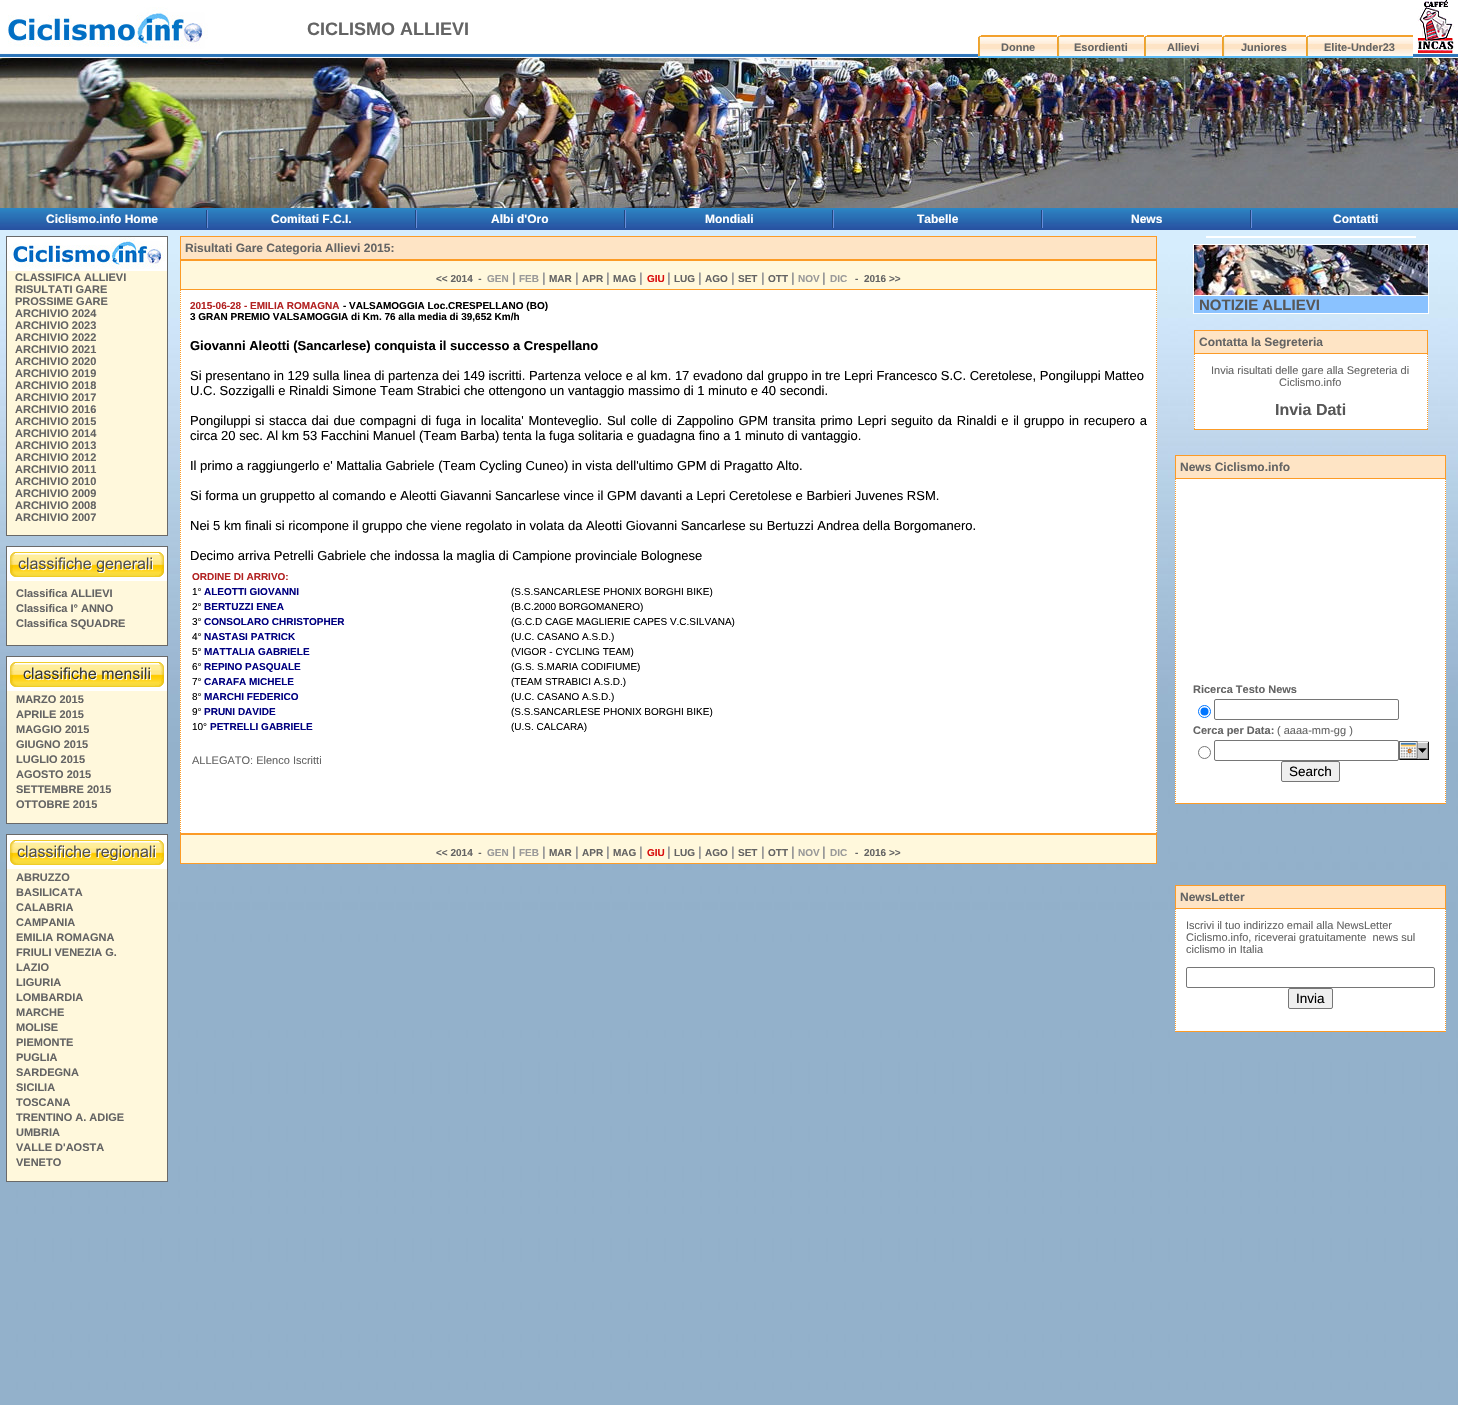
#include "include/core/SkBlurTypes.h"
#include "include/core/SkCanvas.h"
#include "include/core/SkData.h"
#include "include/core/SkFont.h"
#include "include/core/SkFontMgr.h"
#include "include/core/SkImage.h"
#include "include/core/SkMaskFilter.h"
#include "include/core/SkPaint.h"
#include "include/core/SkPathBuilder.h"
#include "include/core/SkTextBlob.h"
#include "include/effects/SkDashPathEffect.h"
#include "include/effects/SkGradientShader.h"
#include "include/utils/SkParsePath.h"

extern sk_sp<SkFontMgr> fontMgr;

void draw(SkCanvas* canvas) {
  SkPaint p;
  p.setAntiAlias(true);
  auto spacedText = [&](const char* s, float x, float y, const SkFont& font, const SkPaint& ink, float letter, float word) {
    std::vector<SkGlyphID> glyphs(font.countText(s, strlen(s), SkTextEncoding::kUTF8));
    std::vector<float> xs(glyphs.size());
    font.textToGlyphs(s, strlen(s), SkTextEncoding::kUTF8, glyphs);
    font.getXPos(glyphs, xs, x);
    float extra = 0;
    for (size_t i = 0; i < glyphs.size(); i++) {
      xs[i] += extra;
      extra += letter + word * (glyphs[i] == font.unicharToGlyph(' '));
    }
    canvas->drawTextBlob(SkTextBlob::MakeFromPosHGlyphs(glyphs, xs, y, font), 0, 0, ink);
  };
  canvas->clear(SK_ColorWHITE);
  canvas->drawImageRect(SkImages::DeferredFromEncodedData(SkData::MakeFromFileName("images/1.png")), SkRect::MakeLTRB(0, 50, 1458, 58), SkSamplingOptions());
  canvas->drawImageRect(SkImages::DeferredFromEncodedData(SkData::MakeFromFileName("images/2.png")), SkRect::MakeLTRB(0, 7, 230, 51), SkSamplingOptions());
  canvas->drawImageRect(SkImages::DeferredFromEncodedData(SkData::MakeFromFileName("images/3.png")), SkRect::MakeLTRB(978, 35, 1057, 58), SkSamplingOptions());
  canvas->drawImageRect(SkImages::DeferredFromEncodedData(SkData::MakeFromFileName("images/4.png")), SkRect::MakeLTRB(1057, 35, 1144, 58), SkSamplingOptions());
  canvas->drawImageRect(SkImages::DeferredFromEncodedData(SkData::MakeFromFileName("images/5.png")), SkRect::MakeLTRB(1144, 35, 1222, 58), SkSamplingOptions());
  canvas->drawImageRect(SkImages::DeferredFromEncodedData(SkData::MakeFromFileName("images/6.png")), SkRect::MakeLTRB(1222, 35, 1306, 58), SkSamplingOptions());
  canvas->drawImageRect(SkImages::DeferredFromEncodedData(SkData::MakeFromFileName("images/7.png")), SkRect::MakeLTRB(1306, 35, 1413, 58), SkSamplingOptions());
  canvas->drawImageRect(SkImages::DeferredFromEncodedData(SkData::MakeFromFileName("images/8.png")), SkRect::MakeLTRB(1416, 0, 1455, 53), SkSamplingOptions());
  canvas->drawImageRect(SkImages::DeferredFromEncodedData(SkData::MakeFromFileName("images/9.png")), SkRect::MakeLTRB(0, 58, 1458, 208), SkSamplingOptions());
  canvas->drawImageRect(SkImages::DeferredFromEncodedData(SkData::MakeFromFileName("images/10.png")), SkRect::MakeLTRB(0, 208, 1458, 230), SkSamplingOptions());
  canvas->drawImageRect(SkImages::DeferredFromEncodedData(SkData::MakeFromFileName("images/11.png")), SkRect::MakeLTRB(206, 210, 208, 228), SkSamplingOptions());
  canvas->drawImageRect(SkImages::DeferredFromEncodedData(SkData::MakeFromFileName("images/11.png")), SkRect::MakeLTRB(415, 210, 417, 228), SkSamplingOptions());
  canvas->drawImageRect(SkImages::DeferredFromEncodedData(SkData::MakeFromFileName("images/11.png")), SkRect::MakeLTRB(624, 210, 626, 228), SkSamplingOptions());
  canvas->drawImageRect(SkImages::DeferredFromEncodedData(SkData::MakeFromFileName("images/11.png")), SkRect::MakeLTRB(832, 210, 834, 228), SkSamplingOptions());
  canvas->drawImageRect(SkImages::DeferredFromEncodedData(SkData::MakeFromFileName("images/11.png")), SkRect::MakeLTRB(1041, 210, 1043, 228), SkSamplingOptions());
  canvas->drawImageRect(SkImages::DeferredFromEncodedData(SkData::MakeFromFileName("images/11.png")), SkRect::MakeLTRB(1250, 210, 1252, 228), SkSamplingOptions());
  canvas->drawImageRect(SkImages::DeferredFromEncodedData(SkData::MakeFromFileName("images/12.png")), SkRect::MakeLTRB(0, 230, 1458, 1405), SkSamplingOptions());
  p.setColor(SkColorSetRGB(105, 105, 105));
  canvas->drawRect(SkRect::MakeLTRB(6, 236, 168, 536), p);
  p.setColor(SK_ColorWHITE);
  canvas->drawRect(SkRect::MakeLTRB(7, 269, 167, 271), p);
  canvas->drawImageRect(SkImages::DeferredFromEncodedData(SkData::MakeFromFileName("images/13.png")), SkRect::MakeLTRB(7, 237, 167, 269), SkSamplingOptions());
  p.setColor(SkColorSetRGB(255, 248, 220));
  canvas->drawRect(SkRect::MakeLTRB(7, 271, 167, 535), p);
  p.setColor(SkColorSetRGB(105, 105, 105));
  canvas->drawRect(SkRect::MakeLTRB(6, 546, 168, 646), p);
  p.setColor(SK_ColorWHITE);
  canvas->drawRect(SkRect::MakeLTRB(7, 547, 167, 581), p);
  canvas->drawImageRect(SkImages::DeferredFromEncodedData(SkData::MakeFromFileName("images/14.png")), SkRect::MakeLTRB(10, 552, 164, 577), SkSamplingOptions());
  p.setColor(SkColorSetRGB(255, 248, 220));
  canvas->drawRect(SkRect::MakeLTRB(7, 581, 167, 645), p);
  p.setColor(SkColorSetRGB(105, 105, 105));
  canvas->drawRect(SkRect::MakeLTRB(6, 656, 168, 824), p);
  p.setColor(SK_ColorWHITE);
  canvas->drawRect(SkRect::MakeLTRB(7, 657, 167, 691), p);
  canvas->drawImageRect(SkImages::DeferredFromEncodedData(SkData::MakeFromFileName("images/15.png")), SkRect::MakeLTRB(10, 662, 164, 687), SkSamplingOptions());
  p.setColor(SkColorSetRGB(255, 248, 220));
  canvas->drawRect(SkRect::MakeLTRB(7, 691, 167, 823), p);
  p.setColor(SkColorSetRGB(105, 105, 105));
  canvas->drawRect(SkRect::MakeLTRB(6, 834, 168, 1182), p);
  p.setColor(SK_ColorWHITE);
  canvas->drawRect(SkRect::MakeLTRB(7, 835, 167, 869), p);
  canvas->drawImageRect(SkImages::DeferredFromEncodedData(SkData::MakeFromFileName("images/16.png")), SkRect::MakeLTRB(10, 840, 164, 865), SkSamplingOptions());
  p.setColor(SkColorSetRGB(255, 248, 220));
  canvas->drawRect(SkRect::MakeLTRB(7, 869, 167, 1181), p);
  p.setColor(SkColorSetRGB(254, 228, 197));
  canvas->drawRect(SkRect::MakeLTRB(180.5f, 236.5f, 1156.5f, 259.5f), p);
  p.setStyle(SkPaint::kStroke_Style);
  p.setStrokeWidth(1);
  p.setColor(SkColorSetRGB(252, 155, 38));
  canvas->drawRect(SkRect::MakeLTRB(180.5f, 236.5f, 1156.5f, 259.5f), p);
  p.setStyle(SkPaint::kFill_Style);
  p.setColor(SkColorSetRGB(255, 248, 220));
  canvas->drawRect(SkRect::MakeLTRB(180.5f, 260.5f, 1156.5f, 289.5f), p);
  p.setStyle(SkPaint::kStroke_Style);
  p.setColor(SkColorSetRGB(252, 155, 38));
  canvas->drawRect(SkRect::MakeLTRB(180.5f, 260.5f, 1156.5f, 289.5f), p);
  p.setStyle(SkPaint::kFill_Style);
  p.setColor(SK_ColorWHITE);
  canvas->drawRect(SkRect::MakeLTRB(180, 290, 1157, 833), p);
  p.setStyle(SkPaint::kStroke_Style);
  p.setColor(SkColorSetRGB(252, 155, 38));
  p.setPathEffect(SkDashPathEffect::Make({{1, 1}}, 0));
  canvas->drawPath(SkPathBuilder().moveTo(1156.5f, 290).lineTo(1156.5f, 834).detach(), p);
  p.setPathEffect(nullptr);
  p.setStyle(SkPaint::kFill_Style);
  canvas->drawRect(SkRect::MakeLTRB(180, 833, 1157, 834), p);
  p.setStyle(SkPaint::kStroke_Style);
  p.setPathEffect(SkDashPathEffect::Make({{1, 1}}, 0));
  canvas->drawPath(SkPathBuilder().moveTo(180.5f, 290).lineTo(180.5f, 834).detach(), p);
  p.setPathEffect(nullptr);
  p.setStyle(SkPaint::kFill_Style);
  p.setColor(SkColorSetRGB(255, 248, 220));
  canvas->drawRect(SkRect::MakeLTRB(180.5f, 834.5f, 1156.5f, 863.5f), p);
  p.setStyle(SkPaint::kStroke_Style);
  p.setColor(SkColorSetRGB(252, 155, 38));
  canvas->drawRect(SkRect::MakeLTRB(180.5f, 834.5f, 1156.5f, 863.5f), p);
  p.setStyle(SkPaint::kFill_Style);
  p.setColor(SK_ColorWHITE);
  canvas->drawRect(SkRect::MakeLTRB(1206, 236, 1416, 238), p);
  canvas->drawRect(SkRect::MakeLTRB(1193, 244, 1429, 314), p);
  canvas->drawImageRect(SkImages::DeferredFromEncodedData(SkData::MakeFromFileName("images/17.png")), SkRect::MakeLTRB(1194, 245, 1428, 295), SkSamplingOptions());
  p.setColor(SkColorSetRGB(138, 194, 255));
  canvas->drawRect(SkRect::MakeLTRB(1194, 296, 1428, 313), p);
  p.setColor(SkColorSetRGB(254, 228, 197));
  canvas->drawRect(SkRect::MakeLTRB(1194.5f, 330.5f, 1427.5f, 353.5f), p);
  p.setStyle(SkPaint::kStroke_Style);
  p.setColor(SkColorSetRGB(252, 155, 38));
  canvas->drawRect(SkRect::MakeLTRB(1194.5f, 330.5f, 1427.5f, 353.5f), p);
  p.setStyle(SkPaint::kFill_Style);
  p.setColor(SK_ColorWHITE);
  canvas->drawRect(SkRect::MakeLTRB(1194, 354, 1428, 429), p);
  p.setStyle(SkPaint::kStroke_Style);
  p.setColor(SkColorSetRGB(252, 155, 38));
  p.setPathEffect(SkDashPathEffect::Make({{1, 1}}, 0));
  canvas->drawPath(SkPathBuilder().moveTo(1427.5f, 354).lineTo(1427.5f, 430).detach(), p);
  p.setPathEffect(nullptr);
  p.setStyle(SkPaint::kFill_Style);
  canvas->drawRect(SkRect::MakeLTRB(1194, 429, 1428, 430), p);
  p.setStyle(SkPaint::kStroke_Style);
  p.setPathEffect(SkDashPathEffect::Make({{1, 1}}, 0));
  canvas->drawPath(SkPathBuilder().moveTo(1194.5f, 354).lineTo(1194.5f, 430).detach(), p);
  p.setPathEffect(nullptr);
  p.setStyle(SkPaint::kFill_Style);
  p.setColor(SkColorSetRGB(254, 228, 197));
  canvas->drawRect(SkRect::MakeLTRB(1175.5f, 455.5f, 1445.5f, 478.5f), p);
  p.setStyle(SkPaint::kStroke_Style);
  p.setColor(SkColorSetRGB(252, 155, 38));
  canvas->drawRect(SkRect::MakeLTRB(1175.5f, 455.5f, 1445.5f, 478.5f), p);
  p.setStyle(SkPaint::kFill_Style);
  p.setColor(SK_ColorWHITE);
  canvas->drawRect(SkRect::MakeLTRB(1175, 479, 1446, 803), p);
  p.setStyle(SkPaint::kStroke_Style);
  p.setColor(SkColorSetRGB(252, 155, 38));
  p.setPathEffect(SkDashPathEffect::Make({{1, 1}}, 0));
  canvas->drawPath(SkPathBuilder().moveTo(1445.5f, 479).lineTo(1445.5f, 804).detach(), p);
  p.setPathEffect(nullptr);
  p.setStyle(SkPaint::kFill_Style);
  canvas->drawRect(SkRect::MakeLTRB(1175, 803, 1446, 804), p);
  p.setStyle(SkPaint::kStroke_Style);
  p.setPathEffect(SkDashPathEffect::Make({{1, 1}}, 0));
  canvas->drawPath(SkPathBuilder().moveTo(1175.5f, 479).lineTo(1175.5f, 804).detach(), p);
  p.setPathEffect(nullptr);
  p.setColor(SkColorSetRGB(0, 117, 255));
  canvas->drawCircle(1204.5f, 711.5f, 6, p);
  p.setStyle(SkPaint::kFill_Style);
  canvas->drawCircle(1204.5f, 711.5f, 4, p);
  p.setStyle(SkPaint::kStroke_Style);
  p.setColor(SkColorSetRGB(118, 118, 118));
  canvas->drawRoundRect(SkRect::MakeLTRB(1214.5f, 699.5f, 1398.5f, 719.5f), 1.5f, 1.5f, p);
  canvas->drawCircle(1204.5f, 752.5f, 6, p);
  canvas->drawRoundRect(SkRect::MakeLTRB(1214.5f, 740.5f, 1398.5f, 760.5f), 1.5f, 1.5f, p);
  canvas->drawImageRect(SkImages::DeferredFromEncodedData(SkData::MakeFromFileName("images/18.png")), SkRect::MakeLTRB(1399, 741, 1429, 760), SkSamplingOptions());
  p.setStyle(SkPaint::kFill_Style);
  p.setColor(SkColorSetRGB(239, 239, 239));
  canvas->drawRoundRect(SkRect::MakeLTRB(1281.5f, 761.5f, 1339.5f, 781.5f), 1.5f, 1.5f, p);
  p.setStyle(SkPaint::kStroke_Style);
  p.setColor(SkColorSetRGB(118, 118, 118));
  canvas->drawRoundRect(SkRect::MakeLTRB(1281.5f, 761.5f, 1339.5f, 781.5f), 1.5f, 1.5f, p);
  p.setStyle(SkPaint::kFill_Style);
  p.setColor(SkColorSetRGB(254, 228, 197));
  canvas->drawRect(SkRect::MakeLTRB(1175.5f, 885.5f, 1445.5f, 908.5f), p);
  p.setStyle(SkPaint::kStroke_Style);
  p.setColor(SkColorSetRGB(252, 155, 38));
  canvas->drawRect(SkRect::MakeLTRB(1175.5f, 885.5f, 1445.5f, 908.5f), p);
  p.setStyle(SkPaint::kFill_Style);
  p.setColor(SK_ColorWHITE);
  canvas->drawRect(SkRect::MakeLTRB(1175, 909, 1446, 1031), p);
  p.setStyle(SkPaint::kStroke_Style);
  p.setColor(SkColorSetRGB(252, 155, 38));
  p.setPathEffect(SkDashPathEffect::Make({{1, 1}}, 0));
  canvas->drawPath(SkPathBuilder().moveTo(1445.5f, 909).lineTo(1445.5f, 1032).detach(), p);
  p.setPathEffect(nullptr);
  p.setStyle(SkPaint::kFill_Style);
  canvas->drawRect(SkRect::MakeLTRB(1175, 1031, 1446, 1032), p);
  p.setStyle(SkPaint::kStroke_Style);
  p.setPathEffect(SkDashPathEffect::Make({{1, 1}}, 0));
  canvas->drawPath(SkPathBuilder().moveTo(1175.5f, 909).lineTo(1175.5f, 1032).detach(), p);
  p.setPathEffect(nullptr);
  p.setColor(SkColorSetRGB(118, 118, 118));
  canvas->drawRoundRect(SkRect::MakeLTRB(1186.5f, 967.5f, 1434.5f, 987.5f), 1.5f, 1.5f, p);
  p.setStyle(SkPaint::kFill_Style);
  p.setColor(SkColorSetRGB(239, 239, 239));
  canvas->drawRoundRect(SkRect::MakeLTRB(1288.5f, 988.5f, 1332.5f, 1008.5f), 1.5f, 1.5f, p);
  p.setStyle(SkPaint::kStroke_Style);
  p.setColor(SkColorSetRGB(118, 118, 118));
  canvas->drawRoundRect(SkRect::MakeLTRB(1288.5f, 988.5f, 1332.5f, 1008.5f), 1.5f, 1.5f, p);
  SkFont font1(fontMgr->matchFamilyStyle("Liberation Sans", SkFontStyle::Bold()), 18);
  font1.setSubpixel(true);
  p.setStyle(SkPaint::kFill_Style);
  p.setColor(SkColorSetRGB(100, 100, 100));
  canvas->drawString("CICLISMO ALLIEVI", 307, 35, font1, p);
  SkFont font2(fontMgr->matchFamilyStyle("Liberation Sans", SkFontStyle::Bold()), 11);
  font2.setSubpixel(true);
  canvas->drawString("Donne", 1001, 51, font2, p);
  canvas->drawString("Esordienti", 1074, 51, font2, p);
  canvas->drawString("Allievi", 1167, 51, font2, p);
  canvas->drawString("Juniores", 1241, 51, font2, p);
  canvas->drawString("Elite-Under23", 1324, 51, font2, p);
  SkFont font3(fontMgr->matchFamilyStyle("Liberation Sans", SkFontStyle::Bold()), 12);
  font3.setSubpixel(true);
  p.setColor(SK_ColorWHITE);
  canvas->drawString("Ciclismo.info Home", 46, 223, font3, p);
  canvas->drawString("Comitati F.C.I.", 271, 223, font3, p);
  canvas->drawString("Albi d'Oro", 491, 223, font3, p);
  canvas->drawString("Mondiali", 705, 223, font3, p);
  canvas->drawString("Tabelle", 917, 223, font3, p);
  canvas->drawString("News", 1131, 223, font3, p);
  canvas->drawString("Contatti", 1333, 223, font3, p);
  p.setColor(SkColorSetRGB(100, 100, 100));
  canvas->drawString("CLASSIFICA ALLIEVI", 15, 281, font2, p);
  canvas->drawString("RISULTATI GARE", 15, 293, font2, p);
  canvas->drawString("PROSSIME GARE", 15, 305, font2, p);
  canvas->drawString("ARCHIVIO 2024", 15, 317, font2, p);
  canvas->drawString("ARCHIVIO 2023", 15, 329, font2, p);
  canvas->drawString("ARCHIVIO 2022", 15, 341, font2, p);
  canvas->drawString("ARCHIVIO 2021", 15, 353, font2, p);
  canvas->drawString("ARCHIVIO 2020", 15, 365, font2, p);
  canvas->drawString("ARCHIVIO 2019", 15, 377, font2, p);
  canvas->drawString("ARCHIVIO 2018", 15, 389, font2, p);
  canvas->drawString("ARCHIVIO 2017", 15, 401, font2, p);
  canvas->drawString("ARCHIVIO 2016", 15, 413, font2, p);
  canvas->drawString("ARCHIVIO 2015", 15, 425, font2, p);
  canvas->drawString("ARCHIVIO 2014", 15, 437, font2, p);
  canvas->drawString("ARCHIVIO 2013", 15, 449, font2, p);
  canvas->drawString("ARCHIVIO 2012", 15, 461, font2, p);
  canvas->drawString("ARCHIVIO 2011", 15, 473, font2, p);
  canvas->drawString("ARCHIVIO 2010", 15, 485, font2, p);
  canvas->drawString("ARCHIVIO 2009", 15, 497, font2, p);
  canvas->drawString("ARCHIVIO 2008", 15, 509, font2, p);
  canvas->drawString("ARCHIVIO 2007", 15, 521, font2, p);
  canvas->drawString("Classifica ALLIEVI", 16, 597, font2, p);
  canvas->drawString("Classifica I° ANNO", 16, 612, font2, p);
  canvas->drawString("Classifica SQUADRE", 16, 627, font2, p);
  canvas->drawString("MARZO 2015", 16, 703, font2, p);
  canvas->drawString("APRILE 2015", 16, 718, font2, p);
  canvas->drawString("MAGGIO 2015", 16, 733, font2, p);
  canvas->drawString("GIUGNO 2015", 16, 748, font2, p);
  canvas->drawString("LUGLIO 2015", 16, 763, font2, p);
  canvas->drawString("AGOSTO 2015", 16, 778, font2, p);
  canvas->drawString("SETTEMBRE 2015", 16, 793, font2, p);
  canvas->drawString("OTTOBRE 2015", 16, 808, font2, p);
  canvas->drawString("ABRUZZO", 16, 881, font2, p);
  canvas->drawString("BASILICATA", 16, 896, font2, p);
  canvas->drawString("CALABRIA", 16, 911, font2, p);
  canvas->drawString("CAMPANIA", 16, 926, font2, p);
  canvas->drawString("EMILIA ROMAGNA", 16, 941, font2, p);
  canvas->drawString("FRIULI VENEZIA G.", 16, 956, font2, p);
  canvas->drawString("LAZIO", 16, 971, font2, p);
  canvas->drawString("LIGURIA", 16, 986, font2, p);
  canvas->drawString("LOMBARDIA", 16, 1001, font2, p);
  canvas->drawString("MARCHE", 16, 1016, font2, p);
  canvas->drawString("MOLISE", 16, 1031, font2, p);
  canvas->drawString("PIEMONTE", 16, 1046, font2, p);
  canvas->drawString("PUGLIA", 16, 1061, font2, p);
  canvas->drawString("SARDEGNA", 16, 1076, font2, p);
  canvas->drawString("SICILIA", 16, 1091, font2, p);
  canvas->drawString("TOSCANA", 16, 1106, font2, p);
  canvas->drawString("TRENTINO A. ADIGE", 16, 1121, font2, p);
  canvas->drawString("UMBRIA", 16, 1136, font2, p);
  canvas->drawString("VALLE D'AOSTA", 16, 1151, font2, p);
  canvas->drawString("VENETO", 16, 1166, font2, p);
  canvas->drawString("Risultati Gare Categoria Allievi 2015:", 185, 252, font3, p);
  SkFont font4(fontMgr->matchFamilyStyle("Liberation Sans", SkFontStyle::Bold()), 10);
  font4.setSubpixel(true);
  canvas->drawString("<< 2014  -", 436, 282, font4, p);
  p.setColor(SkColorSetRGB(153, 153, 153));
  canvas->drawString("GEN", 487, 282, font4, p);
  SkFont font5(fontMgr->matchFamilyStyle("Liberation Sans", SkFontStyle::Bold()), 13);
  font5.setSubpixel(true);
  canvas->drawString("|", 512, 282, font5, p);
  canvas->drawString("FEB", 519, 282, font4, p);
  canvas->drawString("|", 542, 282, font5, p);
  p.setColor(SkColorSetRGB(100, 100, 100));
  canvas->drawString("MAR", 549, 282, font4, p);
  p.setColor(SkColorSetRGB(153, 153, 153));
  canvas->drawString("|", 575, 282, font5, p);
  p.setColor(SkColorSetRGB(100, 100, 100));
  canvas->drawString("APR", 582, 282, font4, p);
  p.setColor(SkColorSetRGB(153, 153, 153));
  canvas->drawString("|", 606, 282, font5, p);
  p.setColor(SkColorSetRGB(100, 100, 100));
  canvas->drawString("MAG", 613, 282, font4, p);
  p.setColor(SkColorSetRGB(153, 153, 153));
  canvas->drawString("|", 639, 282, font5, p);
  p.setColor(SkColorSetRGB(217, 15, 15));
  canvas->drawString("GIU", 647, 282, font4, p);
  p.setColor(SkColorSetRGB(153, 153, 153));
  canvas->drawString("|", 667, 282, font5, p);
  p.setColor(SkColorSetRGB(100, 100, 100));
  canvas->drawString("LUG", 674, 282, font4, p);
  p.setColor(SkColorSetRGB(153, 153, 153));
  canvas->drawString("|", 698, 282, font5, p);
  p.setColor(SkColorSetRGB(100, 100, 100));
  canvas->drawString("AGO", 705, 282, font4, p);
  p.setColor(SkColorSetRGB(153, 153, 153));
  canvas->drawString("|", 731, 282, font5, p);
  p.setColor(SkColorSetRGB(100, 100, 100));
  canvas->drawString("SET", 738, 282, font4, p);
  p.setColor(SkColorSetRGB(153, 153, 153));
  canvas->drawString("|", 761, 282, font5, p);
  p.setColor(SkColorSetRGB(100, 100, 100));
  canvas->drawString("OTT", 768, 282, font4, p);
  p.setColor(SkColorSetRGB(153, 153, 153));
  canvas->drawString("|", 791, 282, font5, p);
  canvas->drawString("NOV", 798, 282, font4, p);
  canvas->drawString("|", 822, 282, font5, p);
  canvas->drawString("DIC", 830, 282, font4, p);
  p.setColor(SkColorSetRGB(100, 100, 100));
  canvas->drawString("-  2016 >>", 855, 282, font4, p);
  p.setColor(SkColorSetRGB(178, 34, 34));
  canvas->drawString("2015-06-28 - EMILIA ROMAGNA", 190, 309, font4, p);
  p.setColor(SK_ColorBLACK);
  canvas->drawString("- VALSAMOGGIA Loc.CRESPELLANO (BO)", 343, 309, font4, p);
  canvas->drawString("3 GRAN PREMIO VALSAMOGGIA di Km. 76 alla media di 39,652 Km/h", 190, 320, font4, p);
  canvas->drawString("Giovanni Aleotti (Sancarlese) conquista il successo a Crespellano", 190, 350, font5, p);
  SkFont font6(fontMgr->matchFamilyStyle("Liberation Sans", SkFontStyle::Normal()), 13);
  font6.setSubpixel(true);
  canvas->drawString("Si presentano in 129 sulla linea di partenza dei 149 iscritti. Partenza veloce e al km. 17 evadono dal gruppo in tre Lepri Francesco S.C. Ceretolese, Pongiluppi Matteo", 190, 380, font6, p);
  canvas->drawString("U.C. Sozzigalli e Rinaldi Simone Team Strabici che ottengono un vantaggio massimo di 1 minuto e 40 secondi.", 190, 395, font6, p);
  canvas->drawString("Pongiluppi", 190, 425, font6, p);
  spacedText("si stacca dai due compagni di fuga", 255, 425, font6, p, 0, 1.1f);
  spacedText("in localita' Monteveglio. Sul colle di Zappolino GPM transita primo Lepri", 466, 425, font6, p, 0, 1.1f);
  spacedText("seguito da Rinaldi e il gruppo in recupero a", 891, 425, font6, p, 0, 1.1f);
  canvas->drawString("circa 20 sec. Al km 53 Facchini Manuel (Team Barba) tenta la fuga solitaria e guadagna fino a 1 minuto di vantaggio.", 190, 440, font6, p);
  canvas->drawString("Il primo a raggiungerlo e' Mattalia Gabriele (Team Cycling Cuneo) in vista dell'ultimo GPM di Pragatto Alto.", 190, 470, font6, p);
  canvas->drawString("Si forma un gruppetto al comando e Aleotti Giavanni Sancarlese vince il GPM davanti a Lepri Ceretolese e Barbieri Juvenes RSM.", 190, 500, font6, p);
  canvas->drawString("Nei 5 km finali si ricompone il gruppo che viene regolato in volata da Aleotti Giovanni Sancarlese su Bertuzzi Andrea della Borgomanero.", 190, 530, font6, p);
  canvas->drawString("Decimo arriva Petrelli Gabriele che indossa la maglia di Campione provinciale Bolognese", 190, 560, font6, p);
  p.setColor(SkColorSetRGB(178, 34, 34));
  canvas->drawString("ORDINE DI ARRIVO:", 192, 580, font4, p);
  SkFont font7(fontMgr->matchFamilyStyle("Liberation Sans", SkFontStyle::Normal()), 10);
  font7.setSubpixel(true);
  p.setColor(SK_ColorBLACK);
  canvas->drawString("1°", 192, 595, font7, p);
  p.setColor(SkColorSetRGB(0, 0, 128));
  canvas->drawString("ALEOTTI GIOVANNI", 204, 595, font4, p);
  p.setColor(SK_ColorBLACK);
  canvas->drawString("(S.S.SANCARLESE PHONIX BORGHI BIKE)", 511, 595, font7, p);
  canvas->drawString("2°", 192, 610, font7, p);
  p.setColor(SkColorSetRGB(0, 0, 128));
  canvas->drawString("BERTUZZI ENEA", 204, 610, font4, p);
  p.setColor(SK_ColorBLACK);
  canvas->drawString("(B.C.2000 BORGOMANERO)", 511, 610, font7, p);
  canvas->drawString("3°", 192, 625, font7, p);
  p.setColor(SkColorSetRGB(0, 0, 128));
  canvas->drawString("CONSOLARO CHRISTOPHER", 204, 625, font4, p);
  p.setColor(SK_ColorBLACK);
  canvas->drawString("(G.C.D CAGE MAGLIERIE CAPES V.C.SILVANA)", 511, 625, font7, p);
  canvas->drawString("4°", 192, 640, font7, p);
  p.setColor(SkColorSetRGB(0, 0, 128));
  canvas->drawString("NASTASI PATRICK", 204, 640, font4, p);
  p.setColor(SK_ColorBLACK);
  canvas->drawString("(U.C. CASANO A.S.D.)", 511, 640, font7, p);
  canvas->drawString("5°", 192, 655, font7, p);
  p.setColor(SkColorSetRGB(0, 0, 128));
  canvas->drawString("MATTALIA GABRIELE", 204, 655, font4, p);
  p.setColor(SK_ColorBLACK);
  canvas->drawString("(VIGOR - CYCLING TEAM)", 511, 655, font7, p);
  canvas->drawString("6°", 192, 670, font7, p);
  p.setColor(SkColorSetRGB(0, 0, 128));
  canvas->drawString("REPINO PASQUALE", 204, 670, font4, p);
  p.setColor(SK_ColorBLACK);
  canvas->drawString("(G.S. S.MARIA CODIFIUME)", 511, 670, font7, p);
  canvas->drawString("7°", 192, 685, font7, p);
  p.setColor(SkColorSetRGB(0, 0, 128));
  canvas->drawString("CARAFA MICHELE", 204, 685, font4, p);
  p.setColor(SK_ColorBLACK);
  canvas->drawString("(TEAM STRABICI A.S.D.)", 511, 685, font7, p);
  canvas->drawString("8°", 192, 700, font7, p);
  p.setColor(SkColorSetRGB(0, 0, 128));
  canvas->drawString("MARCHI FEDERICO", 204, 700, font4, p);
  p.setColor(SK_ColorBLACK);
  canvas->drawString("(U.C. CASANO A.S.D.)", 511, 700, font7, p);
  canvas->drawString("9°", 192, 715, font7, p);
  p.setColor(SkColorSetRGB(0, 0, 128));
  canvas->drawString("PRUNI DAVIDE", 204, 715, font4, p);
  p.setColor(SK_ColorBLACK);
  canvas->drawString("(S.S.SANCARLESE PHONIX BORGHI BIKE)", 511, 715, font7, p);
  canvas->drawString("10°", 192, 730, font7, p);
  p.setColor(SkColorSetRGB(0, 0, 128));
  canvas->drawString("PETRELLI GABRIELE", 210, 730, font4, p);
  p.setColor(SK_ColorBLACK);
  canvas->drawString("(U.S. CALCARA)", 511, 730, font7, p);
  SkFont font8(fontMgr->matchFamilyStyle("Liberation Sans", SkFontStyle::Normal()), 11);
  font8.setSubpixel(true);
  p.setColor(SkColorSetRGB(100, 100, 100));
  canvas->drawString("ALLEGATO: Elenco Iscritti", 192, 764, font8, p);
  canvas->drawString("<< 2014  -", 436, 856, font4, p);
  p.setColor(SkColorSetRGB(153, 153, 153));
  canvas->drawString("GEN", 487, 856, font4, p);
  canvas->drawString("|", 512, 856, font5, p);
  canvas->drawString("FEB", 519, 856, font4, p);
  canvas->drawString("|", 542, 856, font5, p);
  p.setColor(SkColorSetRGB(100, 100, 100));
  canvas->drawString("MAR", 549, 856, font4, p);
  p.setColor(SkColorSetRGB(153, 153, 153));
  canvas->drawString("|", 575, 856, font5, p);
  p.setColor(SkColorSetRGB(100, 100, 100));
  canvas->drawString("APR", 582, 856, font4, p);
  p.setColor(SkColorSetRGB(153, 153, 153));
  canvas->drawString("|", 606, 856, font5, p);
  p.setColor(SkColorSetRGB(100, 100, 100));
  canvas->drawString("MAG", 613, 856, font4, p);
  p.setColor(SkColorSetRGB(153, 153, 153));
  canvas->drawString("|", 639, 856, font5, p);
  p.setColor(SkColorSetRGB(217, 15, 15));
  canvas->drawString("GIU", 647, 856, font4, p);
  p.setColor(SkColorSetRGB(153, 153, 153));
  canvas->drawString("|", 667, 856, font5, p);
  p.setColor(SkColorSetRGB(100, 100, 100));
  canvas->drawString("LUG", 674, 856, font4, p);
  p.setColor(SkColorSetRGB(153, 153, 153));
  canvas->drawString("|", 698, 856, font5, p);
  p.setColor(SkColorSetRGB(100, 100, 100));
  canvas->drawString("AGO", 705, 856, font4, p);
  p.setColor(SkColorSetRGB(153, 153, 153));
  canvas->drawString("|", 731, 856, font5, p);
  p.setColor(SkColorSetRGB(100, 100, 100));
  canvas->drawString("SET", 738, 856, font4, p);
  p.setColor(SkColorSetRGB(153, 153, 153));
  canvas->drawString("|", 761, 856, font5, p);
  p.setColor(SkColorSetRGB(100, 100, 100));
  canvas->drawString("OTT", 768, 856, font4, p);
  p.setColor(SkColorSetRGB(153, 153, 153));
  canvas->drawString("|", 791, 856, font5, p);
  canvas->drawString("NOV", 798, 856, font4, p);
  canvas->drawString("|", 822, 856, font5, p);
  canvas->drawString("DIC", 830, 856, font4, p);
  p.setColor(SkColorSetRGB(100, 100, 100));
  canvas->drawString("-  2016 >>", 855, 856, font4, p);
  SkFont font9(fontMgr->matchFamilyStyle("Liberation Sans", SkFontStyle::Bold()), 15);
  font9.setSubpixel(true);
  p.setColor(SkColorSetRGB(87, 87, 87));
  canvas->drawString("NOTIZIE ALLIEVI", 1199, 310, font9, p);
  p.setColor(SkColorSetRGB(100, 100, 100));
  canvas->drawString("Contatta la Segreteria", 1199, 346, font3, p);
  canvas->drawString("Invia risultati delle gare alla Segreteria di", 1211, 374, font8, p);
  canvas->drawString("Ciclismo.info", 1279, 386, font8, p);
  SkFont font10(fontMgr->matchFamilyStyle("Liberation Sans", SkFontStyle::Bold()), 16);
  font10.setSubpixel(true);
  p.setColor(SkColorSetRGB(87, 87, 87));
  canvas->drawString("Invia Dati", 1275, 415, font10, p);
  p.setColor(SkColorSetRGB(100, 100, 100));
  canvas->drawString("News Ciclismo.info", 1180, 471, font3, p);
  canvas->drawString("Ricerca Testo News", 1193, 693, font2, p);
  canvas->drawString("Cerca per Data:", 1193, 734, font2, p);
  canvas->drawString("( aaaa-mm-gg )", 1277, 734, font8, p);
  SkFont font11(fontMgr->matchFamilyStyle("Liberation Sans", SkFontStyle::Normal()), 13.5f);
  font11.setSubpixel(true);
  p.setColor(SK_ColorBLACK);
  canvas->drawString("Search", 1289, 776, font11, p);
  p.setColor(SkColorSetRGB(100, 100, 100));
  canvas->drawString("NewsLetter", 1180, 901, font3, p);
  canvas->drawString("Iscrivi il tuo indirizzo email alla NewsLetter", 1186, 929, font8, p);
  canvas->drawString("Ciclismo.info, riceverai gratuitamente  news sul", 1186, 941, font8, p);
  canvas->drawString("ciclismo in Italia", 1186, 953, font8, p);
  p.setColor(SK_ColorBLACK);
  canvas->drawString("Invia", 1296, 1003, font11, p);
}
